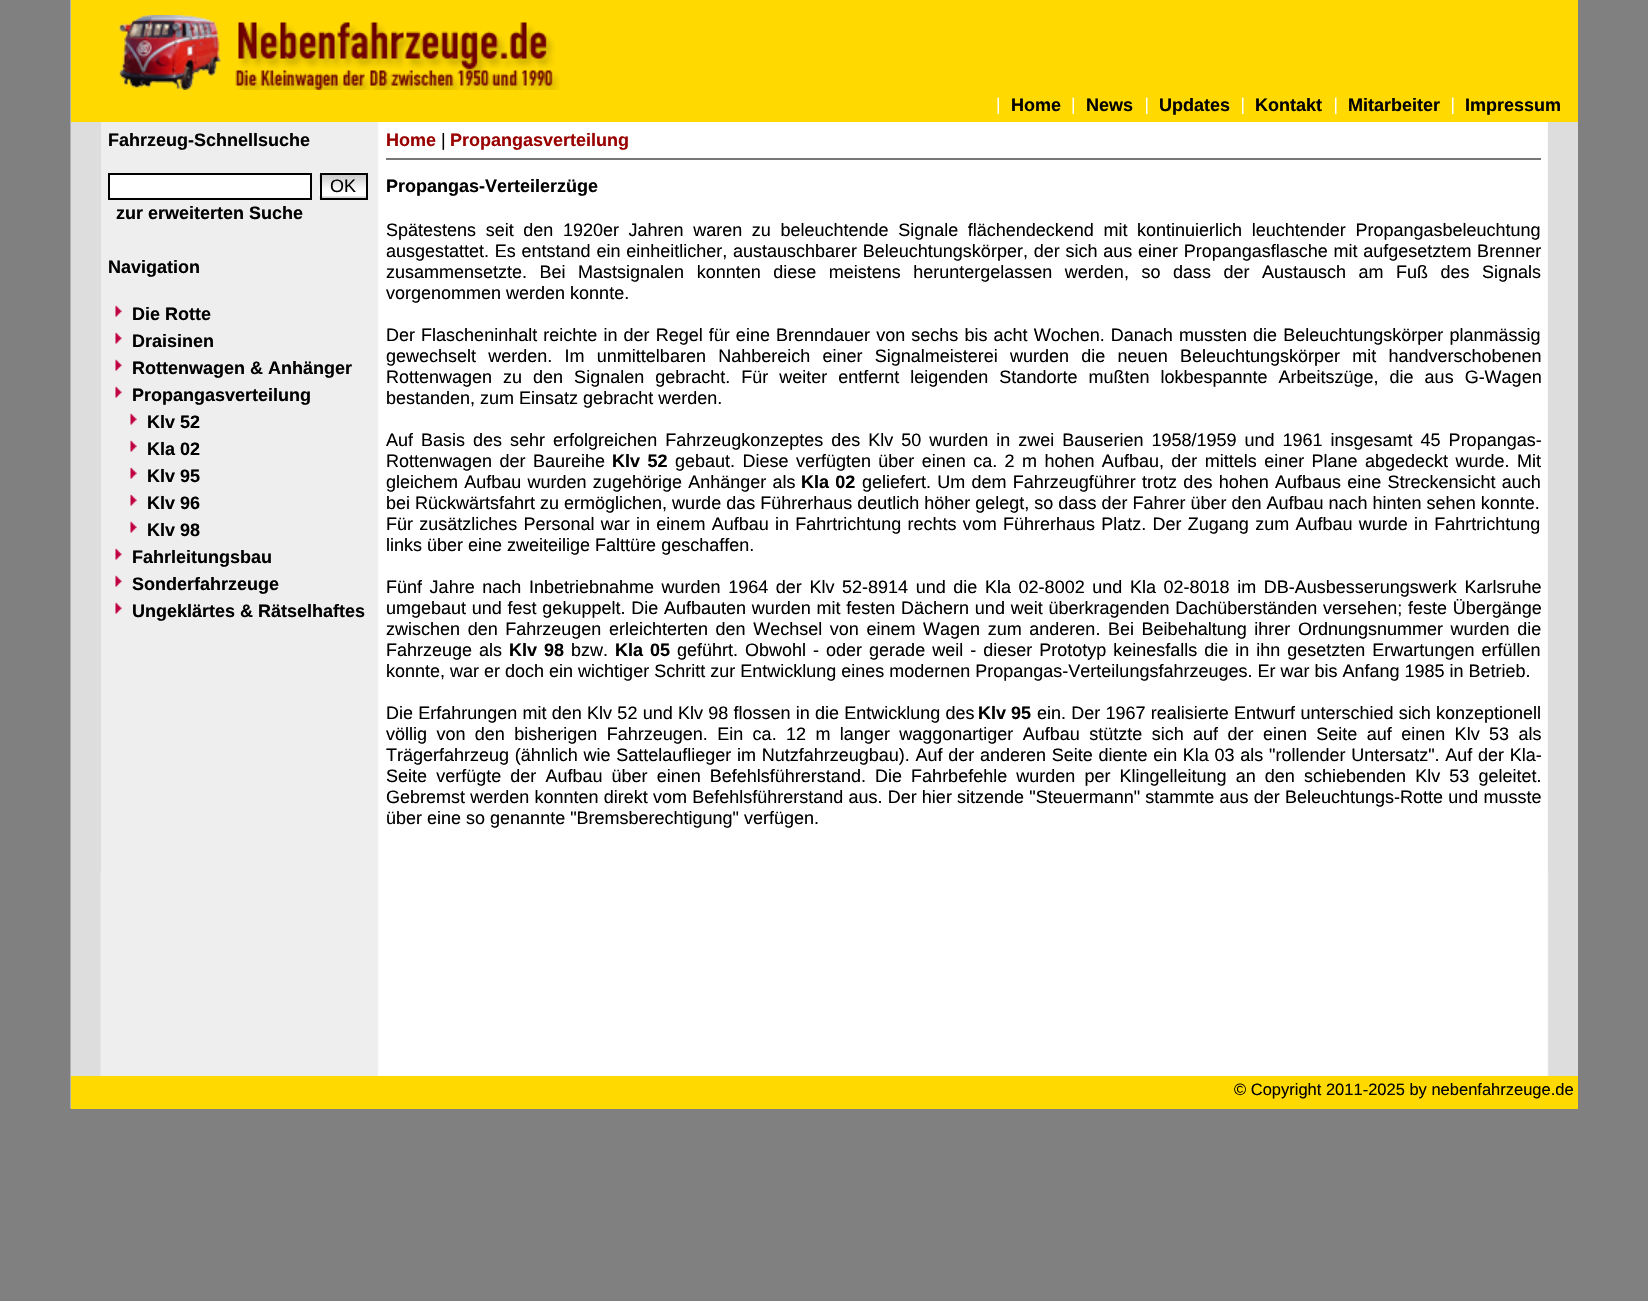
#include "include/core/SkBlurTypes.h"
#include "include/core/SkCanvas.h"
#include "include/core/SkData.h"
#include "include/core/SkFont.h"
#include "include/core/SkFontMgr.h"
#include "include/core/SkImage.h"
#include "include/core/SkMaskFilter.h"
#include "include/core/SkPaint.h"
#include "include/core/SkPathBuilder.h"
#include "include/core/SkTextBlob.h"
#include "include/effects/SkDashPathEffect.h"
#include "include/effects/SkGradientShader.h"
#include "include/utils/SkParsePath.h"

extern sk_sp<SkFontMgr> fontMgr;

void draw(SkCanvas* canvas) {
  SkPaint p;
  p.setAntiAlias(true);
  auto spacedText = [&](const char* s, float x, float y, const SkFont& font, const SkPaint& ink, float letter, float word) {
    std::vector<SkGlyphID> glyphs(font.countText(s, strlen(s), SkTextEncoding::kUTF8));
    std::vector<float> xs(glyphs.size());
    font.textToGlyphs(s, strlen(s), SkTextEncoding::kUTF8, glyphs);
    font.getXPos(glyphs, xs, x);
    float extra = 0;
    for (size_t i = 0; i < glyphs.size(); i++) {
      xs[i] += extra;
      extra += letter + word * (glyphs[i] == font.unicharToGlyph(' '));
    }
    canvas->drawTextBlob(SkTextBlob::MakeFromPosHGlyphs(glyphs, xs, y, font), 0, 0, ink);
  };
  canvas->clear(SkColorSetRGB(128, 128, 128));
  canvas->drawImageRect(SkImages::DeferredFromEncodedData(SkData::MakeFromFileName("images/1.png")), SkRect::MakeLTRB(70, 0, 1578, 1109), SkSamplingOptions());
  p.setColor(SkColorSetRGB(255, 217, 0));
  canvas->drawRect(SkRect::MakeLTRB(71, 0, 1578, 122), p);
  canvas->drawImageRect(SkImages::DeferredFromEncodedData(SkData::MakeFromFileName("images/2.png")), SkRect::MakeLTRB(118, 15, 560, 90), SkSamplingOptions());
  canvas->drawImageRect(SkImages::DeferredFromEncodedData(SkData::MakeFromFileName("images/3.png")), SkRect::MakeLTRB(997, 97, 999, 114), SkSamplingOptions());
  canvas->drawImageRect(SkImages::DeferredFromEncodedData(SkData::MakeFromFileName("images/3.png")), SkRect::MakeLTRB(1072, 97, 1074, 114), SkSamplingOptions());
  canvas->drawImageRect(SkImages::DeferredFromEncodedData(SkData::MakeFromFileName("images/4.png")), SkRect::MakeLTRB(1146, 97, 1148, 114), SkSamplingOptions());
  canvas->drawImageRect(SkImages::DeferredFromEncodedData(SkData::MakeFromFileName("images/4.png")), SkRect::MakeLTRB(1242, 97, 1244, 114), SkSamplingOptions());
  canvas->drawImageRect(SkImages::DeferredFromEncodedData(SkData::MakeFromFileName("images/4.png")), SkRect::MakeLTRB(1335, 97, 1337, 114), SkSamplingOptions());
  canvas->drawImageRect(SkImages::DeferredFromEncodedData(SkData::MakeFromFileName("images/4.png")), SkRect::MakeLTRB(1452, 97, 1454, 114), SkSamplingOptions());
  p.setColor(SkColorSetRGB(221, 221, 221));
  canvas->drawRect(SkRect::MakeLTRB(100, 122, 101, 872), p);
  p.setColor(SK_ColorWHITE);
  canvas->drawRect(SkRect::MakeLTRB(109, 174, 311, 199), p);
  p.setStyle(SkPaint::kStroke_Style);
  p.setStrokeWidth(2);
  p.setColor(SK_ColorBLACK);
  canvas->drawRect(SkRect::MakeLTRB(109, 174, 311, 199), p);
  canvas->drawImageRect(SkImages::DeferredFromEncodedData(SkData::MakeFromFileName("images/5.png")), SkRect::MakeLTRB(319, 172, 368, 200), SkSamplingOptions());
  canvas->drawRect(SkRect::MakeLTRB(321, 174, 367, 199), p);
  canvas->drawImageRect(SkImages::DeferredFromEncodedData(SkData::MakeFromFileName("images/6.png")), SkRect::MakeLTRB(115, 305, 122, 317), SkSamplingOptions());
  canvas->drawImageRect(SkImages::DeferredFromEncodedData(SkData::MakeFromFileName("images/6.png")), SkRect::MakeLTRB(115, 332, 122, 344), SkSamplingOptions());
  canvas->drawImageRect(SkImages::DeferredFromEncodedData(SkData::MakeFromFileName("images/6.png")), SkRect::MakeLTRB(115, 359, 122, 371), SkSamplingOptions());
  canvas->drawImageRect(SkImages::DeferredFromEncodedData(SkData::MakeFromFileName("images/6.png")), SkRect::MakeLTRB(115, 386, 122, 398), SkSamplingOptions());
  canvas->drawImageRect(SkImages::DeferredFromEncodedData(SkData::MakeFromFileName("images/6.png")), SkRect::MakeLTRB(130, 413, 137, 425), SkSamplingOptions());
  canvas->drawImageRect(SkImages::DeferredFromEncodedData(SkData::MakeFromFileName("images/6.png")), SkRect::MakeLTRB(130, 440, 137, 452), SkSamplingOptions());
  canvas->drawImageRect(SkImages::DeferredFromEncodedData(SkData::MakeFromFileName("images/6.png")), SkRect::MakeLTRB(130, 467, 137, 479), SkSamplingOptions());
  canvas->drawImageRect(SkImages::DeferredFromEncodedData(SkData::MakeFromFileName("images/6.png")), SkRect::MakeLTRB(130, 494, 137, 506), SkSamplingOptions());
  canvas->drawImageRect(SkImages::DeferredFromEncodedData(SkData::MakeFromFileName("images/6.png")), SkRect::MakeLTRB(130, 521, 137, 533), SkSamplingOptions());
  canvas->drawImageRect(SkImages::DeferredFromEncodedData(SkData::MakeFromFileName("images/6.png")), SkRect::MakeLTRB(115, 548, 122, 560), SkSamplingOptions());
  canvas->drawImageRect(SkImages::DeferredFromEncodedData(SkData::MakeFromFileName("images/6.png")), SkRect::MakeLTRB(115, 575, 122, 587), SkSamplingOptions());
  canvas->drawImageRect(SkImages::DeferredFromEncodedData(SkData::MakeFromFileName("images/6.png")), SkRect::MakeLTRB(115, 602, 122, 614), SkSamplingOptions());
  p.setStyle(SkPaint::kFill_Style);
  p.setColor(SkColorSetRGB(119, 119, 119));
  canvas->drawRect(SkRect::MakeLTRB(386, 158, 1541, 160), p);
  p.setColor(SkColorSetRGB(221, 221, 221));
  canvas->drawRect(SkRect::MakeLTRB(1548, 122, 1549, 872), p);
  p.setColor(SkColorSetRGB(255, 217, 0));
  canvas->drawRect(SkRect::MakeLTRB(71, 1076, 1578, 1109), p);
  SkFont font1(fontMgr->matchFamilyStyle("Liberation Sans", SkFontStyle::Bold()), 18);
  font1.setSubpixel(true);
  p.setColor(SK_ColorBLACK);
  canvas->drawString("Home", 1011, 111, font1, p);
  canvas->drawString("News", 1086, 111, font1, p);
  canvas->drawString("Updates", 1159, 111, font1, p);
  canvas->drawString("Kontakt", 1255, 111, font1, p);
  canvas->drawString("Mitarbeiter", 1348, 111, font1, p);
  canvas->drawString("Impressum", 1465, 111, font1, p);
  canvas->drawString("Fahrzeug-Schnellsuche", 108, 146, font1, p);
  SkFont font2(fontMgr->matchFamilyStyle("Liberation Sans", SkFontStyle::Normal()), 18);
  font2.setSubpixel(true);
  canvas->drawString("OK", 330, 192, font2, p);
  canvas->drawString("zur erweiterten Suche", 116, 219, font1, p);
  canvas->drawString("Navigation", 108, 273, font1, p);
  canvas->drawString("Die Rotte", 132, 320, font1, p);
  canvas->drawString("Draisinen", 132, 347, font1, p);
  canvas->drawString("Rottenwagen & Anhänger", 132, 374, font1, p);
  canvas->drawString("Propangasverteilung", 132, 401, font1, p);
  canvas->drawString("Klv 52", 147, 428, font1, p);
  canvas->drawString("Kla 02", 147, 455, font1, p);
  canvas->drawString("Klv 95", 147, 482, font1, p);
  canvas->drawString("Klv 96", 147, 509, font1, p);
  canvas->drawString("Klv 98", 147, 536, font1, p);
  canvas->drawString("Fahrleitungsbau", 132, 563, font1, p);
  canvas->drawString("Sonderfahrzeuge", 132, 590, font1, p);
  canvas->drawString("Ungeklärtes & Rätselhaftes", 132, 617, font1, p);
  p.setColor(SkColorSetRGB(153, 0, 0));
  canvas->drawString("Home", 386, 146, font1, p);
  p.setColor(SK_ColorBLACK);
  canvas->drawString("|", 441, 146, font2, p);
  p.setColor(SkColorSetRGB(153, 0, 0));
  canvas->drawString("Propangasverteilung", 450, 146, font1, p);
  p.setColor(SK_ColorBLACK);
  canvas->drawString("Propangas-Verteilerzüge", 386, 192, font1, p);
  spacedText("Spätestens seit den 1920er Jahren waren zu beleuchtende Signale flächendeckend mit kontinuierlich leuchtender Propangasbeleuchtung", 386, 236, font2, p, 0, 4.6f);
  spacedText("ausgestattet. Es entstand ein einheitlicher, austauschbarer Beleuchtungskörper, der sich aus einer Propangasflasche mit aufgesetztem Brenner", 386, 257, font2, p, 0, 0.75f);
  spacedText("zusammensetzte. Bei Mastsignalen konnten diese meistens heruntergelassen werden, so dass der Austausch am Fuß des Signals", 386, 278, font2, p, 0, 7.5f);
  canvas->drawString("vorgenommen werden konnte.", 386, 299, font2, p);
  spacedText("Der Flascheninhalt reichte in der Regel für eine Brenndauer von sechs bis acht Wochen. Danach mussten die Beleuchtungskörper planmässig", 386, 341, font2, p, 0, 1.1f);
  spacedText("gewechselt werden. Im unmittelbaren Nahbereich einer Signalmeisterei wurden die neuen Beleuchtungskörper mit handverschobenen", 386, 362, font2, p, 0, 7.25f);
  spacedText("Rottenwagen zu den Signalen gebracht. Für weiter entfernt leigenden Standorte mußten lokbespannte Arbeitszüge, die aus G-Wagen", 386, 383, font2, p, 0, 6);
  canvas->drawString("bestanden, zum Einsatz gebracht werden.", 386, 404, font2, p);
  spacedText("Auf Basis des sehr erfolgreichen Fahrzeugkonzeptes des Klv 50 wurden in zwei Bauserien 1958/1959 und 1961 insgesamt 45 Propangas-", 386, 446, font2, p, 0, 3);
  spacedText("Rottenwagen der Baureihe", 386, 467, font2, p, 0, 2.4f);
  spacedText("Klv 52", 612, 467, font1, p, 0, 2.4f);
  spacedText("gebaut. Diese verfügten über einen ca. 2 m hohen Aufbau, der mittels einer Plane abgedeckt wurde. Mit", 675, 467, font2, p, 0, 2.4f);
  spacedText("gleichem Aufbau wurden zugehörige Anhänger als", 386, 488, font2, p, 0, 1.25f);
  spacedText("Kla 02", 801, 488, font1, p, 0, 1.25f);
  spacedText("geliefert. Um dem Fahrzeugführer trotz des hohen Aufbaus eine Streckensicht auch", 862, 488, font2, p, 0, 1.25f);
  canvas->drawString("bei Rückwärtsfahrt zu ermöglichen, wurde das Führerhaus deutlich höher gelegt, so dass der Fahrer über den Aufbau nach hinten sehen konnte.", 386, 509, font2, p);
  spacedText("Für zusätzliches Personal war in einem Aufbau in Fahrtrichtung rechts vom Führerhaus Platz. Der Zugang zum Aufbau wurde in Fahrtrichtung", 386, 530, font2, p, 0, 1.25f);
  canvas->drawString("links über eine zweiteilige Falttüre geschaffen.", 386, 551, font2, p);
  spacedText("Fünf Jahre nach Inbetriebnahme wurden 1964 der Klv 52-8914 und die Kla 02-8002 und Kla 02-8018 im DB-Ausbesserungswerk Karlsruhe", 386, 593, font2, p, 0, 2.6f);
  spacedText("umgebaut und fest gekuppelt. Die Aufbauten wurden mit festen Dächern und weit überkragenden Dachüberständen versehen; feste Übergänge", 386, 614, font2, p, 0, 0.75f);
  spacedText("zwischen den Fahrzeugen erleichterten den Wechsel von einem Wagen zum anderen. Bei Beibehaltung ihrer Ordnungsnummer wurden die", 386, 635, font2, p, 0, 2.6f);
  spacedText("Fahrzeuge als", 386, 656, font2, p, 0, 2);
  spacedText("Klv 98", 509, 656, font1, p, 0, 2);
  canvas->drawString("bzw.", 571, 656, font2, p);
  spacedText("Kla 05", 615, 656, font1, p, 0, 2);
  spacedText("geführt. Obwohl - oder gerade weil - dieser Prototyp keinesfalls die in ihn gesetzten Erwartungen erfüllen", 677, 656, font2, p, 0, 2);
  canvas->drawString("konnte, war er doch ein wichtiger Schritt zur Entwicklung eines modernen Propangas-Verteilungsfahrzeuges. Er war bis Anfang 1985 in Betrieb.", 386, 677, font2, p);
  spacedText("Die Erfahrungen mit den Klv 52 und Klv 98 flossen in die Entwicklung des", 386, 719, font2, p, 0, 0.25f);
  canvas->drawString("Klv 95", 978, 719, font1, p);
  spacedText("ein. Der 1967 realisierte Entwurf unterschied sich konzeptionell", 1037, 719, font2, p, 0, 0.25f);
  spacedText("völlig von den bisherigen Fahrzeugen. Ein ca. 12 m langer waggonartiger Aufbau stützte sich auf der einen Seite auf einen Klv 53 als", 386, 740, font2, p, 0, 4.4f);
  spacedText("Trägerfahrzeug (ähnlich wie Sattelauflieger im Nutzfahrzeugbau). Auf der anderen Seite diente ein Kla 03 als \"rollender Untersatz\". Auf der Kla-", 386, 761, font2, p, 0, 0.7f);
  spacedText("Seite verfügte der Aufbau über einen Befehlsführerstand. Die Fahrbefehle wurden per Klingelleitung an den schiebenden Klv 53 geleitet.", 386, 782, font2, p, 0, 4.1f);
  spacedText("Gebremst werden konnten direkt vom Befehlsführerstand aus. Der hier sitzende \"Steuermann\" stammte aus der Beleuchtungs-Rotte und musste", 386, 803, font2, p, 0, 0.2f);
  canvas->drawString("über eine so genannte \"Bremsberechtigung\" verfügen.", 386, 824, font2, p);
  SkFont font3(fontMgr->matchFamilyStyle("Liberation Sans", SkFontStyle::Normal()), 16.5f);
  font3.setSubpixel(true);
  canvas->drawString("© Copyright 2011-2025 by nebenfahrzeuge.de", 1234, 1095, font3, p);
}
